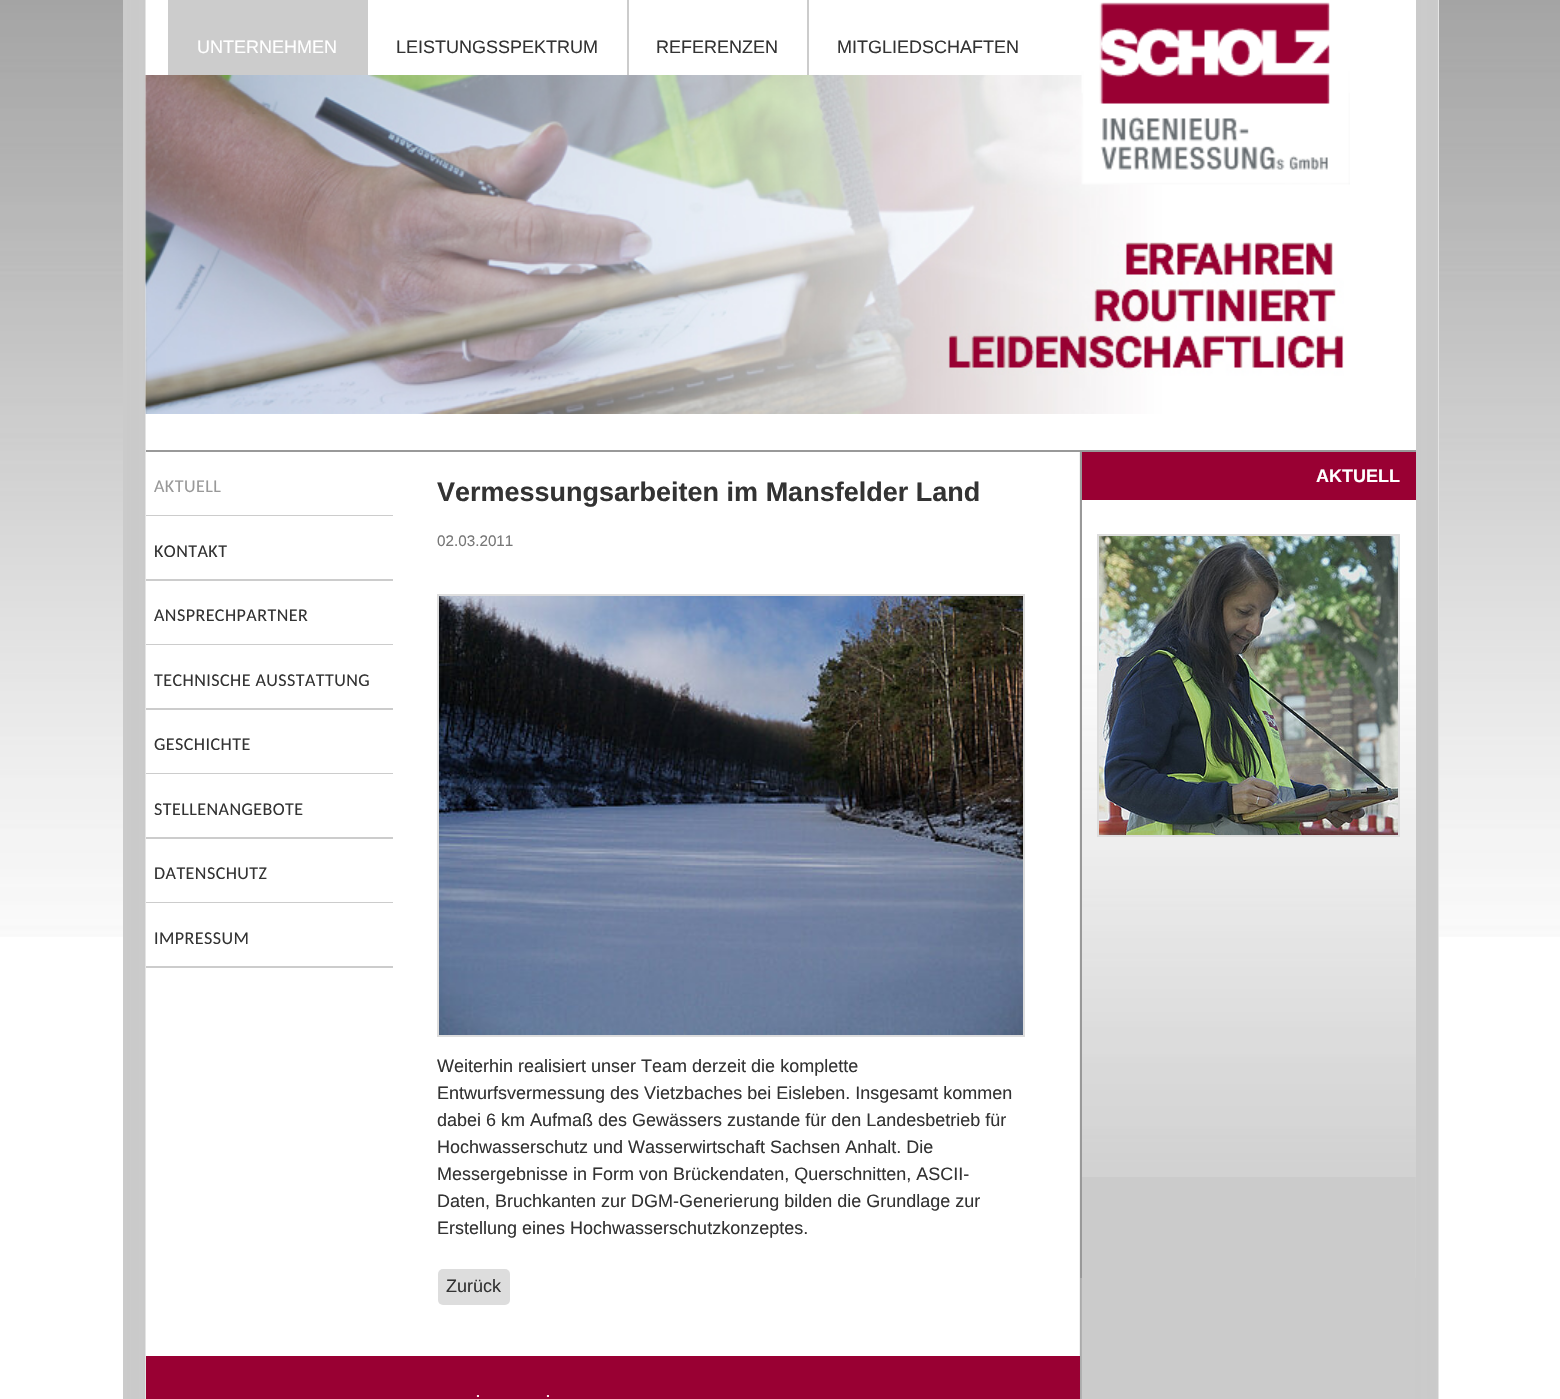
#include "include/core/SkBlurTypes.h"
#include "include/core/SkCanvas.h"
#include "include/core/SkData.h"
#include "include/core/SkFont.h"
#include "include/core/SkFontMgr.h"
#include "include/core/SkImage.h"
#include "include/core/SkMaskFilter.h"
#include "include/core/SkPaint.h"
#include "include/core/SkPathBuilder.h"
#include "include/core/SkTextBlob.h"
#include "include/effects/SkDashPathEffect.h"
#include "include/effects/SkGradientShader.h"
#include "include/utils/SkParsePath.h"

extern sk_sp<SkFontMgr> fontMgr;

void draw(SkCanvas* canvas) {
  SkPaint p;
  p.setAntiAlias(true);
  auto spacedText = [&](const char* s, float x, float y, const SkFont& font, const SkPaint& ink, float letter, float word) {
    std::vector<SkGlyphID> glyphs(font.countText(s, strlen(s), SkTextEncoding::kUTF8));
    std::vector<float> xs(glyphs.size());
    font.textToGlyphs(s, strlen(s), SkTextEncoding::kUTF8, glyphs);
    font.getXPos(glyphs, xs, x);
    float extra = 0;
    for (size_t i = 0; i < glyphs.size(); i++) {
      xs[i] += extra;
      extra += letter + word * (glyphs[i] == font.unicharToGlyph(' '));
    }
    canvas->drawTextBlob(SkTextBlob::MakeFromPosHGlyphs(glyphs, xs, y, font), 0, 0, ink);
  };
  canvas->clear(SK_ColorWHITE);
  canvas->drawImageRect(SkImages::DeferredFromEncodedData(SkData::MakeFromFileName("images/1.png")), SkRect::MakeLTRB(0, 0, 1560, 937), SkSamplingOptions());
  p.setColor(SK_ColorWHITE);
  canvas->drawRect(SkRect::MakeLTRB(1438, 0, 1439, 937), p);
  canvas->drawImageRect(SkImages::DeferredFromEncodedData(SkData::MakeFromFileName("images/2.png")), SkRect::MakeLTRB(123, 0, 1439, 1399), SkSamplingOptions());
  canvas->drawRect(SkRect::MakeLTRB(1079, 0, 1416, 450), p);
  p.setColor(SkColorSetRGB(204, 204, 204));
  canvas->drawRect(SkRect::MakeLTRB(168, 0, 368, 75), p);
  canvas->drawRect(SkRect::MakeLTRB(627, 0, 629, 75), p);
  canvas->drawRect(SkRect::MakeLTRB(807, 0, 809, 75), p);
  canvas->drawImageRect(SkImages::DeferredFromEncodedData(SkData::MakeFromFileName("images/4.png")), SkRect::MakeLTRB(145, 75, 1344, 414), SkSamplingOptions());
  canvas->drawImageRect(SkImages::DeferredFromEncodedData(SkData::MakeFromFileName("images/3.png")), SkRect::MakeLTRB(1081, 2, 1350, 185), SkSamplingOptions());
  p.setColor(SkColorSetRGB(153, 153, 153));
  canvas->drawRect(SkRect::MakeLTRB(146, 450, 1416, 452), p);
  p.setColor(SkColorSetRGB(205, 205, 205));
  canvas->drawRect(SkRect::MakeLTRB(1415, 1177, 1416, 1278), p);
  canvas->drawImageRect(SkImages::DeferredFromEncodedData(SkData::MakeFromFileName("images/5.png")), SkRect::MakeLTRB(1082, 500, 1416, 1177), SkSamplingOptions());
  p.setColor(SkColorSetRGB(153, 153, 153));
  canvas->drawRect(SkRect::MakeLTRB(1080, 452, 1082, 1278), p);
  p.setColor(SkColorSetRGB(153, 0, 51));
  canvas->drawRect(SkRect::MakeLTRB(1082, 452, 1416, 500), p);
  canvas->drawImageRect(SkImages::DeferredFromEncodedData(SkData::MakeFromFileName("images/6.png")), SkRect::MakeLTRB(1099, 536, 1398, 835), SkSamplingOptions());
  p.setStyle(SkPaint::kStroke_Style);
  p.setStrokeWidth(2);
  p.setColor(SkColorSetRGB(221, 221, 221));
  canvas->drawRect(SkRect::MakeLTRB(1098, 535, 1399, 836), p);
  p.setStyle(SkPaint::kFill_Style);
  p.setColor(SkColorSetRGB(204, 204, 204));
  canvas->drawRect(SkRect::MakeLTRB(146, 515, 393, 516), p);
  canvas->drawRect(SkRect::MakeLTRB(146, 579, 393, 581), p);
  canvas->drawRect(SkRect::MakeLTRB(146, 644, 393, 645), p);
  canvas->drawRect(SkRect::MakeLTRB(146, 708, 393, 710), p);
  canvas->drawRect(SkRect::MakeLTRB(146, 773, 393, 774), p);
  canvas->drawRect(SkRect::MakeLTRB(146, 837, 393, 839), p);
  canvas->drawRect(SkRect::MakeLTRB(146, 902, 393, 903), p);
  canvas->drawRect(SkRect::MakeLTRB(146, 966, 393, 968), p);
  canvas->drawImageRect(SkImages::DeferredFromEncodedData(SkData::MakeFromFileName("images/7.png")), SkRect::MakeLTRB(439, 596, 1023, 1035), SkSamplingOptions());
  p.setStyle(SkPaint::kStroke_Style);
  p.setColor(SkColorSetRGB(221, 221, 221));
  canvas->drawRect(SkRect::MakeLTRB(438, 595, 1024, 1036), p);
  p.setStyle(SkPaint::kFill_Style);
  canvas->drawRoundRect(SkRect::MakeLTRB(438, 1269, 510, 1305), 5, 5, p);
  p.setColor(SkColorSetRGB(153, 0, 51));
  canvas->drawRect(SkRect::MakeLTRB(146, 1356, 1080, 1399), p);
  SkFont font1(fontMgr->matchFamilyStyle("Liberation Sans", SkFontStyle::Normal()), 18);
  font1.setSubpixel(true);
  p.setColor(SK_ColorWHITE);
  canvas->drawString("UNTERNEHMEN", 197, 53, font1, p);
  p.setColor(SkColorSetRGB(51, 51, 51));
  canvas->drawString("LEISTUNGSSPEKTRUM", 396, 53, font1, p);
  canvas->drawString("REFERENZEN", 656, 53, font1, p);
  canvas->drawString("MITGLIEDSCHAFTEN", 837, 53, font1, p);
  SkFont font2(fontMgr->matchFamilyStyle("Liberation Sans", SkFontStyle::Bold()), 18);
  font2.setSubpixel(true);
  p.setColor(SK_ColorWHITE);
  canvas->drawString("AKTUELL", 1316, 482, font2, p);
  SkFont font3(fontMgr->matchFamilyStyle("Carlito", SkFontStyle::Normal()), 18);
  font3.setSubpixel(true);
  p.setColor(SkColorSetRGB(153, 153, 153));
  spacedText("AKTUELL", 154, 492, font3, p, 0.45f, 0);
  p.setColor(SkColorSetRGB(51, 51, 51));
  spacedText("KONTAKT", 154, 557, font3, p, 0.45f, 0);
  spacedText("ANSPRECHPARTNER", 154, 621, font3, p, 0.45f, 0);
  spacedText("TECHNISCHE AUSSTATTUNG", 154, 686, font3, p, 0.45f, 0);
  spacedText("GESCHICHTE", 154, 750, font3, p, 0.45f, 0);
  spacedText("STELLENANGEBOTE", 154, 815, font3, p, 0.45f, 0);
  spacedText("DATENSCHUTZ", 154, 879, font3, p, 0.45f, 0);
  spacedText("IMPRESSUM", 154, 944, font3, p, 0.45f, 0);
  SkFont font4(fontMgr->matchFamilyStyle("Liberation Sans", SkFontStyle::Bold()), 27);
  font4.setSubpixel(true);
  canvas->drawString("Vermessungsarbeiten im Mansfelder Land", 437, 501, font4, p);
  SkFont font5(fontMgr->matchFamilyStyle("Liberation Sans", SkFontStyle::Normal()), 15.25f);
  font5.setSubpixel(true);
  p.setColor(SkColorSetRGB(119, 119, 119));
  canvas->drawString("02.03.2011", 437, 546, font5, p);
  p.setColor(SkColorSetRGB(51, 51, 51));
  canvas->drawString("Weiterhin realisiert unser Team derzeit die komplette", 437, 1072, font1, p);
  canvas->drawString("Entwurfsvermessung des Vietzbaches bei Eisleben. Insgesamt kommen", 437, 1099, font1, p);
  canvas->drawString("dabei 6 km Aufmaß des Gewässers zustande für den Landesbetrieb für", 437, 1126, font1, p);
  canvas->drawString("Hochwasserschutz und Wasserwirtschaft Sachsen Anhalt. Die", 437, 1153, font1, p);
  canvas->drawString("Messergebnisse in Form von Brückendaten, Querschnitten, ASCII-", 437, 1180, font1, p);
  canvas->drawString("Daten, Bruchkanten zur DGM-Generierung bilden die Grundlage zur", 437, 1207, font1, p);
  canvas->drawString("Erstellung eines Hochwasserschutzkonzeptes.", 437, 1234, font1, p);
  canvas->drawString("Zurück", 446, 1292, font1, p);
  SkFont font6(fontMgr->matchFamilyStyle("Liberation Serif", SkFontStyle::Normal()), 18);
  font6.setSubpixel(true);
  p.setColor(SK_ColorWHITE);
  canvas->drawString("·", 475, 1402, font6, p);
  canvas->drawString("·", 545, 1402, font6, p);
}
